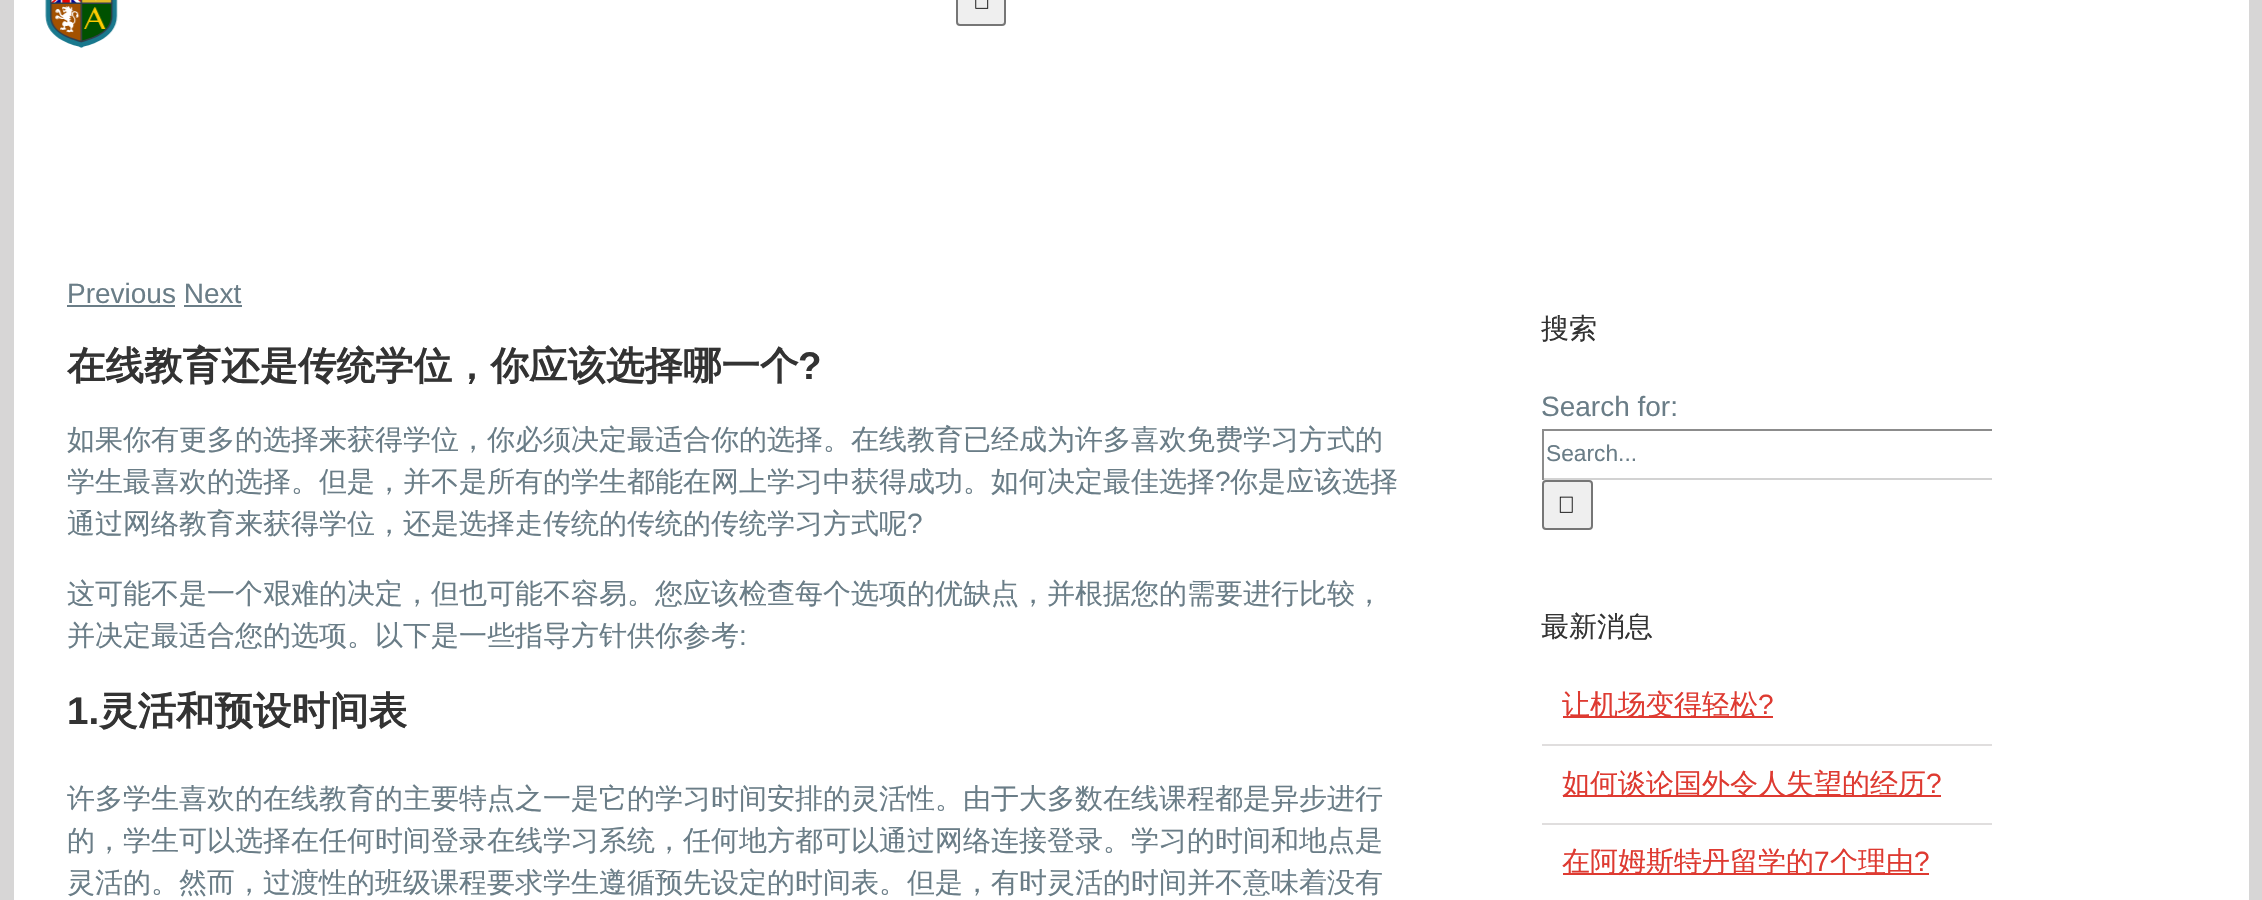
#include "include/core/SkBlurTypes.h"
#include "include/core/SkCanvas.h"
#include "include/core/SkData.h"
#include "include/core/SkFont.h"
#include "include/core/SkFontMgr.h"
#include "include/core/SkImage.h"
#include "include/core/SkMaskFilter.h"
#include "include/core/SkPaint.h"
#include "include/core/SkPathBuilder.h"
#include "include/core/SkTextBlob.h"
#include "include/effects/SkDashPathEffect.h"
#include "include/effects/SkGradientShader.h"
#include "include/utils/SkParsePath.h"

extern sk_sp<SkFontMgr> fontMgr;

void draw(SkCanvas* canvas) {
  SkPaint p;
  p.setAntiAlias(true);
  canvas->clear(SkColorSetRGB(215, 214, 214));
  p.setColor(SK_ColorWHITE);
  canvas->drawRect(SkRect::MakeLTRB(14, 0, 2249, 900), p);
  canvas->drawImageRect(SkImages::DeferredFromEncodedData(SkData::MakeFromFileName("images/1.png")), SkRect::MakeLTRB(45, 0, 118, 48), SkSamplingOptions());
  p.setColor(SkColorSetRGB(239, 239, 239));
  canvas->drawRoundRect(SkRect::MakeLTRB(957, -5, 1005, 25), 3, 3, p);
  p.setStyle(SkPaint::kStroke_Style);
  p.setStrokeWidth(2);
  p.setColor(SkColorSetRGB(118, 118, 118));
  canvas->drawRoundRect(SkRect::MakeLTRB(957, -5, 1005, 25), 3, 3, p);
  canvas->drawImageRect(SkImages::DeferredFromEncodedData(SkData::MakeFromFileName("images/2.png")), SkRect::MakeLTRB(975, 0, 989, 9), SkSamplingOptions());
  p.setStyle(SkPaint::kFill_Style);
  p.setColor(SkColorSetRGB(106, 125, 135));
  canvas->drawRect(SkRect::MakeLTRB(67, 305, 175, 307), p);
  canvas->drawRect(SkRect::MakeLTRB(184, 305, 242, 307), p);
  p.setColor(SkColorSetRGB(140, 140, 140));
  canvas->drawRect(SkRect::MakeLTRB(1542, 429, 1992, 431), p);
  p.setColor(SkColorSetRGB(210, 210, 210));
  canvas->drawRect(SkRect::MakeLTRB(1542, 478, 1992, 480), p);
  p.setColor(SkColorSetRGB(140, 140, 140));
  canvas->drawRect(SkRect::MakeLTRB(1542, 429, 1544, 480), p);
  p.setColor(SkColorSetRGB(239, 239, 239));
  canvas->drawRoundRect(SkRect::MakeLTRB(1543, 481, 1592, 529), 3, 3, p);
  p.setStyle(SkPaint::kStroke_Style);
  p.setColor(SkColorSetRGB(118, 118, 118));
  canvas->drawRoundRect(SkRect::MakeLTRB(1543, 481, 1592, 529), 3, 3, p);
  canvas->drawImageRect(SkImages::DeferredFromEncodedData(SkData::MakeFromFileName("images/3.png")), SkRect::MakeLTRB(1559, 496, 1573, 513), SkSamplingOptions());
  p.setStyle(SkPaint::kFill_Style);
  p.setColor(SkColorSetRGB(224, 222, 222));
  canvas->drawRect(SkRect::MakeLTRB(1542, 744, 1992, 746), p);
  p.setColor(SkColorSetRGB(222, 58, 49));
  canvas->drawRect(SkRect::MakeLTRB(1563, 716, 1773, 718), p);
  p.setColor(SkColorSetRGB(224, 222, 222));
  canvas->drawRect(SkRect::MakeLTRB(1542, 823, 1992, 825), p);
  p.setColor(SkColorSetRGB(222, 58, 49));
  canvas->drawRect(SkRect::MakeLTRB(1563, 795, 1941, 797), p);
  canvas->drawRect(SkRect::MakeLTRB(1563, 873, 1929, 875), p);
  SkFont font1(fontMgr->matchFamilyStyle("Liberation Sans", SkFontStyle::Normal()), 28);
  font1.setSubpixel(true);
  p.setColor(SkColorSetRGB(106, 125, 135));
  canvas->drawString("Previous Next", 67, 303, font1, p);
  SkFont font2(fontMgr->matchFamilyStyle("WenQuanYi Zen Hei", SkFontStyle::Bold()), 38.5f);
  font2.setSubpixel(true);
  p.setColor(SkColorSetRGB(51, 51, 51));
  canvas->drawString("在线教育还是传统学位，你应该选择哪一个", 67, 379, font2, p);
  SkFont font3(fontMgr->matchFamilyStyle("Liberation Sans", SkFontStyle::Bold()), 38.5f);
  font3.setSubpixel(true);
  canvas->drawString("?", 798, 379, font3, p);
  SkFont font4(fontMgr->matchFamilyStyle("WenQuanYi Zen Hei", SkFontStyle(500, SkFontStyle::kNormal_Width, SkFontStyle::kUpright_Slant)), 28);
  font4.setSubpixel(true);
  p.setColor(SkColorSetRGB(106, 125, 135));
  canvas->drawString("如果你有更多的选择来获得学位，你必须决定最适合你的选择。在线教育已经成为许多喜欢免费学习方式的", 67, 449, font4, p);
  canvas->drawString("学生最喜欢的选择。但是，并不是所有的学生都能在网上学习中获得成功。如何决定最佳选择", 67, 491, font4, p);
  canvas->drawString("?", 1215, 491, font1, p);
  canvas->drawString("你是应该选择", 1230, 491, font4, p);
  canvas->drawString("通过网络教育来获得学位，还是选择走传统的传统的传统学习方式呢", 67, 533, font4, p);
  canvas->drawString("?", 907, 533, font1, p);
  canvas->drawString("这可能不是一个艰难的决定，但也可能不容易。您应该检查每个选项的优缺点，并根据您的需要进行比较，", 67, 603, font4, p);
  canvas->drawString("并决定最适合您的选项。以下是一些指导方针供你参考", 67, 645, font4, p);
  canvas->drawString(":", 739, 645, font1, p);
  p.setColor(SkColorSetRGB(51, 51, 51));
  canvas->drawString("1.", 67, 724, font3, p);
  canvas->drawString("灵活和预设时间表", 99, 724, font2, p);
  p.setColor(SkColorSetRGB(106, 125, 135));
  canvas->drawString("许多学生喜欢的在线教育的主要特点之一是它的学习时间安排的灵活性。由于大多数在线课程都是异步进行", 67, 808, font4, p);
  canvas->drawString("的，学生可以选择在任何时间登录在线学习系统，任何地方都可以通过网络连接登录。学习的时间和地点是", 67, 850, font4, p);
  canvas->drawString("灵活的。然而，过渡性的班级课程要求学生遵循预先设定的时间表。但是，有时灵活的时间并不意味着没有", 67, 892, font4, p);
  p.setColor(SkColorSetRGB(51, 51, 51));
  canvas->drawString("搜索", 1541, 338, font4, p);
  p.setColor(SkColorSetRGB(106, 125, 135));
  canvas->drawString("Search for:", 1541, 416, font1, p);
  SkFont font5(fontMgr->matchFamilyStyle("Liberation Sans", SkFontStyle::Normal()), 22.75f);
  font5.setSubpixel(true);
  canvas->drawString("Search...", 1546, 461, font5, p);
  p.setColor(SkColorSetRGB(51, 51, 51));
  canvas->drawString("最新消息", 1541, 636, font4, p);
  p.setColor(SkColorSetRGB(222, 58, 49));
  canvas->drawString("让机场变得轻松", 1562, 714, font4, p);
  canvas->drawString("?", 1758, 714, font1, p);
  canvas->drawString("如何谈论国外令人失望的经历", 1562, 793, font4, p);
  canvas->drawString("?", 1926, 793, font1, p);
  canvas->drawString("在阿姆斯特丹留学的", 1562, 871, font4, p);
  canvas->drawString("7", 1814, 871, font1, p);
  canvas->drawString("个理由", 1830, 871, font4, p);
  canvas->drawString("?", 1914, 871, font1, p);
}
